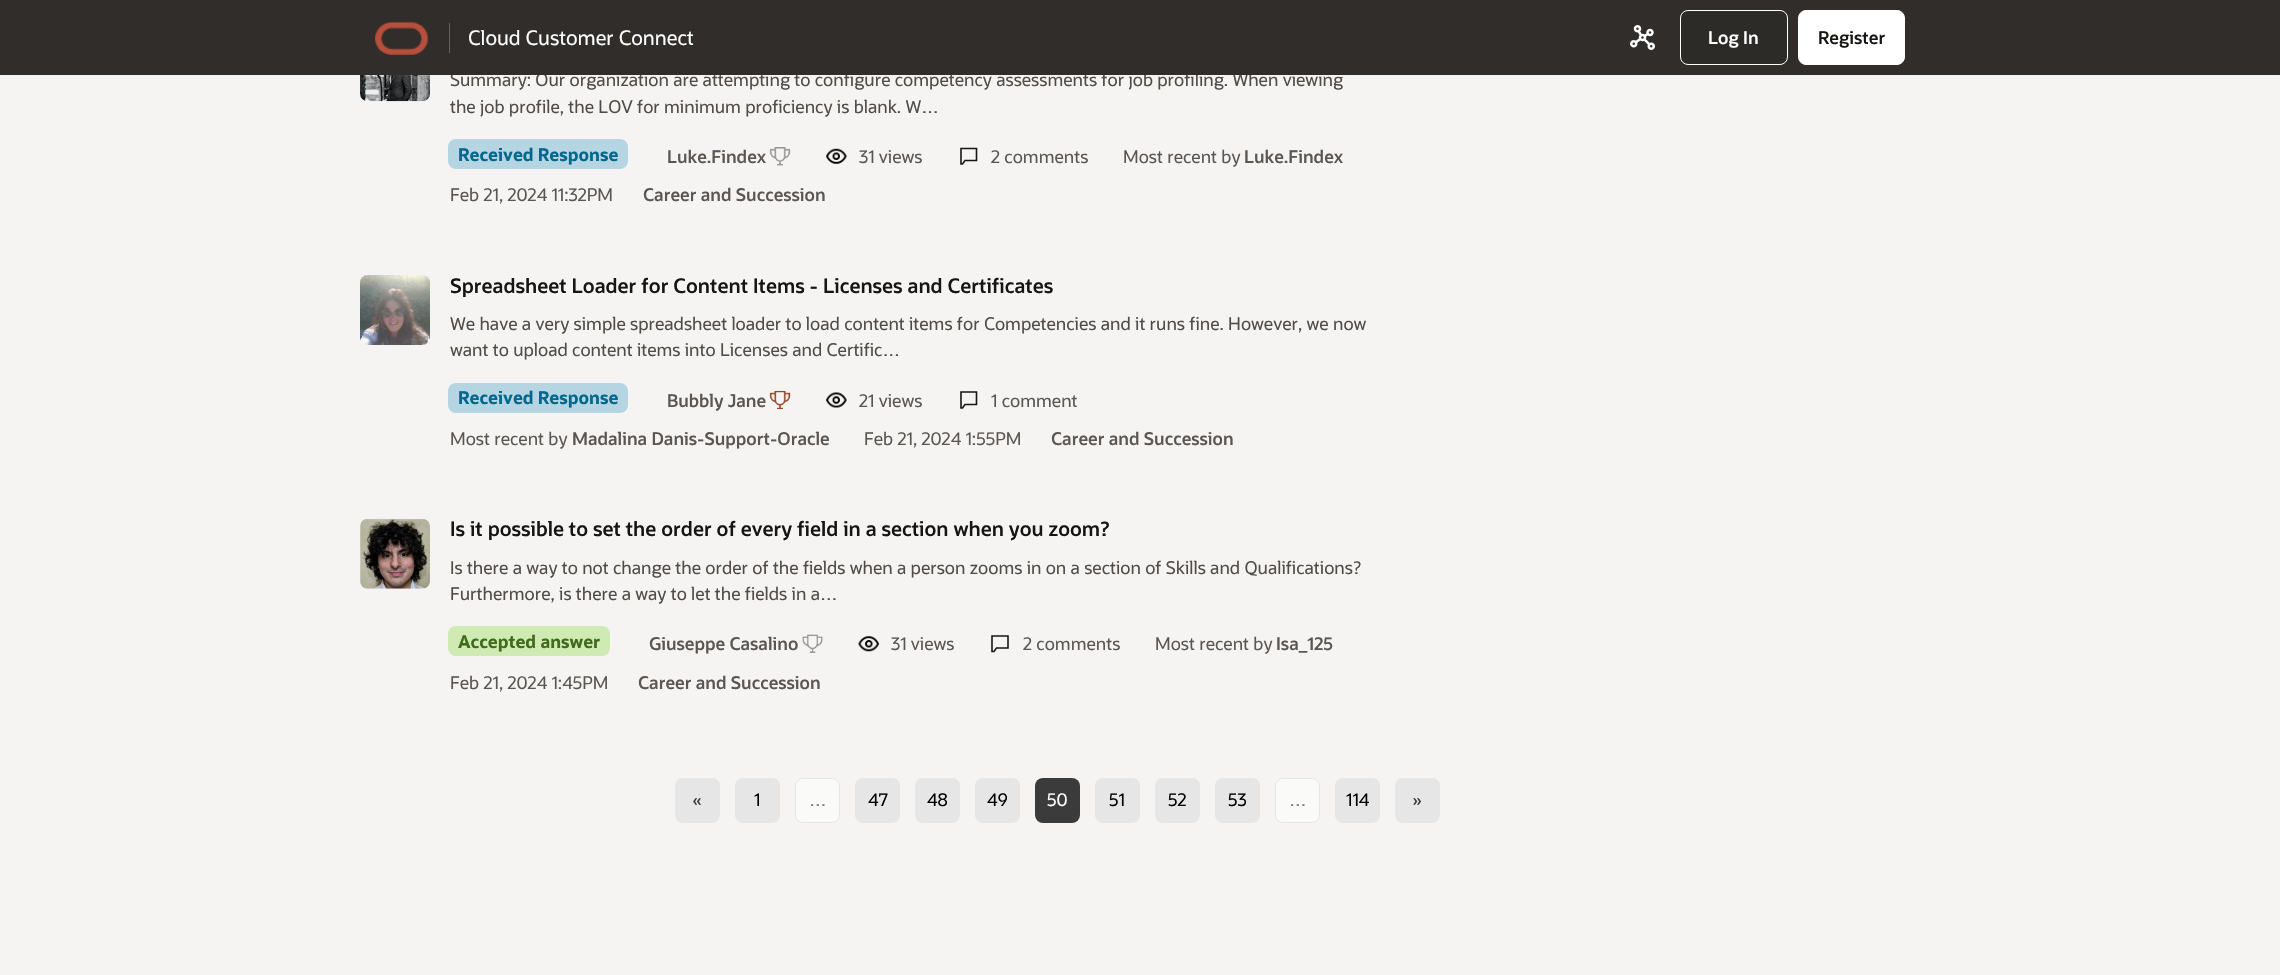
#include "include/core/SkBlurTypes.h"
#include "include/core/SkCanvas.h"
#include "include/core/SkData.h"
#include "include/core/SkFont.h"
#include "include/core/SkFontMgr.h"
#include "include/core/SkImage.h"
#include "include/core/SkMaskFilter.h"
#include "include/core/SkPaint.h"
#include "include/core/SkPathBuilder.h"
#include "include/core/SkTextBlob.h"
#include "include/effects/SkDashPathEffect.h"
#include "include/effects/SkGradientShader.h"
#include "include/utils/SkParsePath.h"

extern sk_sp<SkFontMgr> fontMgr;

void draw(SkCanvas* canvas) {
  SkPaint p;
  p.setAntiAlias(true);
  canvas->clear(SkColorSetRGB(245, 244, 242));
  canvas->drawImageRect(SkImages::DeferredFromEncodedData(SkData::MakeFromFileName("images/3.png")), SkRect::MakeLTRB(360, 75, 430, 102), SkSamplingOptions());
  p.setColor(SkColorSetRGB(180, 213, 225));
  canvas->drawRoundRect(SkRect::MakeLTRB(448, 139, 628, 169), 8, 8, p);
  canvas->drawImageRect(SkImages::DeferredFromEncodedData(SkData::MakeFromFileName("images/4.png")), SkRect::MakeLTRB(769, 147, 791, 166), SkSamplingOptions());
  canvas->drawImageRect(SkImages::DeferredFromEncodedData(SkData::MakeFromFileName("images/5.png")), SkRect::MakeLTRB(826, 148, 847, 164), SkSamplingOptions());
  p.setStyle(SkPaint::kStroke_Style);
  p.setStrokeWidth(1.6f);
  p.setColor(SkColorSetRGB(22, 21, 19));
  canvas->drawPath(SkPathBuilder().moveTo(976.5f, 148.5f).lineTo(961, 148.5f).lineTo(961, 164).lineTo(962.5f, 164).lineTo(965, 160.5f).lineTo(976.5f, 160.5f).close().detach(), p);
  canvas->drawImageRect(SkImages::DeferredFromEncodedData(SkData::MakeFromFileName("images/6.png")), SkRect::MakeLTRB(360, 275, 430, 345), SkSamplingOptions());
  p.setStyle(SkPaint::kFill_Style);
  p.setColor(SkColorSetRGB(180, 213, 225));
  canvas->drawRoundRect(SkRect::MakeLTRB(448, 383, 628, 413), 8, 8, p);
  canvas->drawImageRect(SkImages::DeferredFromEncodedData(SkData::MakeFromFileName("images/7.png")), SkRect::MakeLTRB(769, 390, 791, 410), SkSamplingOptions());
  canvas->drawImageRect(SkImages::DeferredFromEncodedData(SkData::MakeFromFileName("images/8.png")), SkRect::MakeLTRB(826, 392, 847, 408), SkSamplingOptions());
  p.setStyle(SkPaint::kStroke_Style);
  p.setColor(SkColorSetRGB(22, 21, 19));
  canvas->drawPath(SkPathBuilder().moveTo(976.5f, 392).lineTo(961, 392).lineTo(961, 408).lineTo(962.5f, 408).lineTo(965, 404.5f).lineTo(976.5f, 404.5f).close().detach(), p);
  canvas->drawImageRect(SkImages::DeferredFromEncodedData(SkData::MakeFromFileName("images/9.png")), SkRect::MakeLTRB(360, 518, 430, 589), SkSamplingOptions());
  p.setStyle(SkPaint::kFill_Style);
  p.setColor(SkColorSetRGB(207, 235, 179));
  canvas->drawRoundRect(SkRect::MakeLTRB(448, 626, 610, 656), 8, 8, p);
  canvas->drawImageRect(SkImages::DeferredFromEncodedData(SkData::MakeFromFileName("images/10.png")), SkRect::MakeLTRB(802, 634, 823, 653), SkSamplingOptions());
  canvas->drawImageRect(SkImages::DeferredFromEncodedData(SkData::MakeFromFileName("images/11.png")), SkRect::MakeLTRB(858, 636, 880, 652), SkSamplingOptions());
  p.setStyle(SkPaint::kStroke_Style);
  p.setColor(SkColorSetRGB(22, 21, 19));
  canvas->drawPath(SkPathBuilder().moveTo(1008, 636).lineTo(992, 636).lineTo(992, 651.5f).lineTo(994, 651.5f).lineTo(996.5f, 648).lineTo(1008, 648).close().detach(), p);
  p.setStyle(SkPaint::kFill_Style);
  p.setColor(SkColorSetRGB(230, 230, 230));
  canvas->drawRoundRect(SkRect::MakeLTRB(675, 778, 720, 823), 8, 8, p);
  canvas->drawRoundRect(SkRect::MakeLTRB(735, 778, 780, 823), 8, 8, p);
  p.setColor(SkColorSetRGB(250, 250, 249));
  canvas->drawRoundRect(SkRect::MakeLTRB(795.5f, 778.5f, 839.5f, 822.5f), 7.5f, 7.5f, p);
  p.setStyle(SkPaint::kStroke_Style);
  p.setStrokeWidth(1);
  p.setColor(SkColorSetRGB(230, 230, 230));
  canvas->drawRoundRect(SkRect::MakeLTRB(795.5f, 778.5f, 839.5f, 822.5f), 7.5f, 7.5f, p);
  p.setStyle(SkPaint::kFill_Style);
  canvas->drawRoundRect(SkRect::MakeLTRB(855, 778, 900, 823), 8, 8, p);
  canvas->drawRoundRect(SkRect::MakeLTRB(915, 778, 960, 823), 8, 8, p);
  canvas->drawRoundRect(SkRect::MakeLTRB(975, 778, 1020, 823), 8, 8, p);
  p.setColor(SkColorSetRGB(60, 59, 59));
  canvas->drawRoundRect(SkRect::MakeLTRB(1035, 778, 1080, 823), 8, 8, p);
  p.setColor(SkColorSetRGB(230, 230, 230));
  canvas->drawRoundRect(SkRect::MakeLTRB(1095, 778, 1140, 823), 8, 8, p);
  canvas->drawRoundRect(SkRect::MakeLTRB(1155, 778, 1200, 823), 8, 8, p);
  canvas->drawRoundRect(SkRect::MakeLTRB(1215, 778, 1260, 823), 8, 8, p);
  p.setColor(SkColorSetRGB(250, 250, 249));
  canvas->drawRoundRect(SkRect::MakeLTRB(1275.5f, 778.5f, 1319.5f, 822.5f), 7.5f, 7.5f, p);
  p.setStyle(SkPaint::kStroke_Style);
  p.setColor(SkColorSetRGB(230, 230, 230));
  canvas->drawRoundRect(SkRect::MakeLTRB(1275.5f, 778.5f, 1319.5f, 822.5f), 7.5f, 7.5f, p);
  p.setStyle(SkPaint::kFill_Style);
  canvas->drawRoundRect(SkRect::MakeLTRB(1335, 778, 1380, 823), 8, 8, p);
  canvas->drawRoundRect(SkRect::MakeLTRB(1395, 778, 1440, 823), 8, 8, p);
  SkFont font1(fontMgr->matchFamilyStyle("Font", SkFontStyle::Normal()), 17.5f);
  font1.setSubpixel(true);
  p.setColor(SkColorSetRGB(81, 76, 71));
  canvas->drawString("Summary: Our organization are attempting to configure competency assessments for job profiling. When viewing", 450, 86, font1, p);
  p.setColor(SkColorSetRGB(48, 45, 42));
  canvas->drawRect(SkRect::MakeLTRB(0, 0, 2280, 75), p);
  p.setColor(SK_ColorWHITE);
  canvas->drawRoundRect(SkRect::MakeLTRB(1798.5f, 10.5f, 1904.5f, 64.5f), 7.5f, 7.5f, p);
  p.setStyle(SkPaint::kStroke_Style);
  canvas->drawRoundRect(SkRect::MakeLTRB(1798.5f, 10.5f, 1904.5f, 64.5f), 7.5f, 7.5f, p);
  SkFont font2(fontMgr->matchFamilyStyle("Font", SkFontStyle(600, SkFontStyle::kNormal_Width, SkFontStyle::kUpright_Slant)), 17.5f);
  font2.setSubpixel(true);
  p.setStyle(SkPaint::kFill_Style);
  p.setColor(SkColorSetRGB(22, 21, 19));
  canvas->drawString("Register", 1818, 44, font2, p);
  p.setColor(SkColorSetRGB(45, 43, 40));
  canvas->drawRoundRect(SkRect::MakeLTRB(1680.5f, 10.5f, 1787.5f, 64.5f), 7.5f, 7.5f, p);
  p.setStyle(SkPaint::kStroke_Style);
  p.setColor(SK_ColorWHITE);
  canvas->drawRoundRect(SkRect::MakeLTRB(1680.5f, 10.5f, 1787.5f, 64.5f), 7.5f, 7.5f, p);
  p.setStyle(SkPaint::kFill_Style);
  canvas->drawString("Log In", 1708, 44, font2, p);
  SkFont font3(fontMgr->matchFamilyStyle("Font", SkFontStyle::Normal()), 20);
  font3.setSubpixel(true);
  canvas->drawString("Cloud Customer Connect", 468, 45, font3, p);
  p.setColor(SkColorSetRGB(102, 95, 91));
  canvas->drawRect(SkRect::MakeLTRB(449, 23, 450, 53), p);
  canvas->drawImageRect(SkImages::DeferredFromEncodedData(SkData::MakeFromFileName("images/1.png")), SkRect::MakeLTRB(375, 21, 429, 55), SkSamplingOptions());
  canvas->drawImageRect(SkImages::DeferredFromEncodedData(SkData::MakeFromFileName("images/2.png")), SkRect::MakeLTRB(1630, 25, 1655, 50), SkSamplingOptions());
  p.setColor(SkColorSetRGB(81, 76, 71));
  canvas->drawString("the job profile, the LOV for minimum proficiency is blank. W…", 450, 113, font1, p);
  SkFont font4(fontMgr->matchFamilyStyle("Font", SkFontStyle::Bold()), 17.5f);
  font4.setSubpixel(true);
  p.setColor(SkColorSetRGB(0, 104, 140));
  canvas->drawString("Received Response", 458, 161, font4, p);
  p.setColor(SkColorSetRGB(91, 86, 82));
  canvas->drawString("Luke.Findex", 667, 163, font2, p);
  canvas->drawString("31 views", 859, 163, font1, p);
  canvas->drawString("2 comments", 991, 163, font1, p);
  canvas->drawString("Most recent by", 1123, 163, font1, p);
  canvas->drawString("Luke.Findex", 1244, 163, font2, p);
  canvas->drawString("Feb 21, 2024 11:32PM", 450, 201, font1, p);
  canvas->drawString("Career and Succession", 643, 201, font2, p);
  SkFont font5(fontMgr->matchFamilyStyle("Font", SkFontStyle(600, SkFontStyle::kNormal_Width, SkFontStyle::kUpright_Slant)), 20);
  font5.setSubpixel(true);
  p.setColor(SkColorSetRGB(22, 21, 19));
  canvas->drawString("Spreadsheet Loader for Content Items - Licenses and Certificates", 450, 293, font5, p);
  p.setColor(SkColorSetRGB(81, 76, 71));
  canvas->drawString("We have a very simple spreadsheet loader to load content items for Competencies and it runs fine. However, we now", 450, 330, font1, p);
  canvas->drawString("want to upload content items into Licenses and Certific…", 450, 356, font1, p);
  p.setColor(SkColorSetRGB(0, 104, 140));
  canvas->drawString("Received Response", 458, 404, font4, p);
  p.setColor(SkColorSetRGB(91, 86, 82));
  canvas->drawString("Bubbly Jane", 667, 407, font2, p);
  canvas->drawString("21 views", 859, 407, font1, p);
  canvas->drawString("1 comment", 991, 407, font1, p);
  canvas->drawString("Most recent by", 450, 445, font1, p);
  canvas->drawString("Madalina Danis-Support-Oracle", 572, 445, font2, p);
  canvas->drawString("Feb 21, 2024 1:55PM", 864, 445, font1, p);
  canvas->drawString("Career and Succession", 1051, 445, font2, p);
  p.setColor(SkColorSetRGB(22, 21, 19));
  canvas->drawString("Is it possible to set the order of every field in a section when you zoom?", 450, 536, font5, p);
  p.setColor(SkColorSetRGB(81, 76, 71));
  canvas->drawString("Is there a way to not change the order of the fields when a person zooms in on a section of Skills and Qualifications?", 450, 574, font1, p);
  canvas->drawString("Furthermore, is there a way to let the fields in a…", 450, 600, font1, p);
  p.setColor(SkColorSetRGB(67, 107, 29));
  canvas->drawString("Accepted answer", 458, 648, font4, p);
  p.setColor(SkColorSetRGB(91, 86, 82));
  canvas->drawString("Giuseppe Casalino", 649, 650, font2, p);
  canvas->drawString("31 views", 891, 650, font1, p);
  canvas->drawString("2 comments", 1023, 650, font1, p);
  canvas->drawString("Most recent by", 1155, 650, font1, p);
  canvas->drawString("Isa_125", 1276, 650, font2, p);
  canvas->drawString("Feb 21, 2024 1:45PM", 450, 689, font1, p);
  canvas->drawString("Career and Succession", 638, 689, font2, p);
  p.setColor(SkColorSetRGB(60, 59, 59));
  canvas->drawString("«", 692, 806, font1, p);
  p.setColor(SK_ColorBLACK);
  canvas->drawString("1", 754, 806, font1, p);
  p.setColor(SkColorSetRGB(123, 122, 121));
  canvas->drawString("…", 809, 806, font1, p);
  p.setColor(SK_ColorBLACK);
  canvas->drawString("47", 868, 806, font1, p);
  canvas->drawString("48", 927, 806, font1, p);
  canvas->drawString("49", 987, 806, font1, p);
  p.setColor(SK_ColorWHITE);
  canvas->drawString("50", 1047, 806, font1, p);
  p.setColor(SK_ColorBLACK);
  canvas->drawString("51", 1109, 806, font1, p);
  canvas->drawString("52", 1168, 806, font1, p);
  canvas->drawString("53", 1228, 806, font1, p);
  p.setColor(SkColorSetRGB(123, 122, 121));
  canvas->drawString("…", 1289, 806, font1, p);
  p.setColor(SK_ColorBLACK);
  canvas->drawString("114", 1346, 806, font1, p);
  p.setColor(SkColorSetRGB(60, 59, 59));
  canvas->drawString("»", 1412, 806, font1, p);
}
